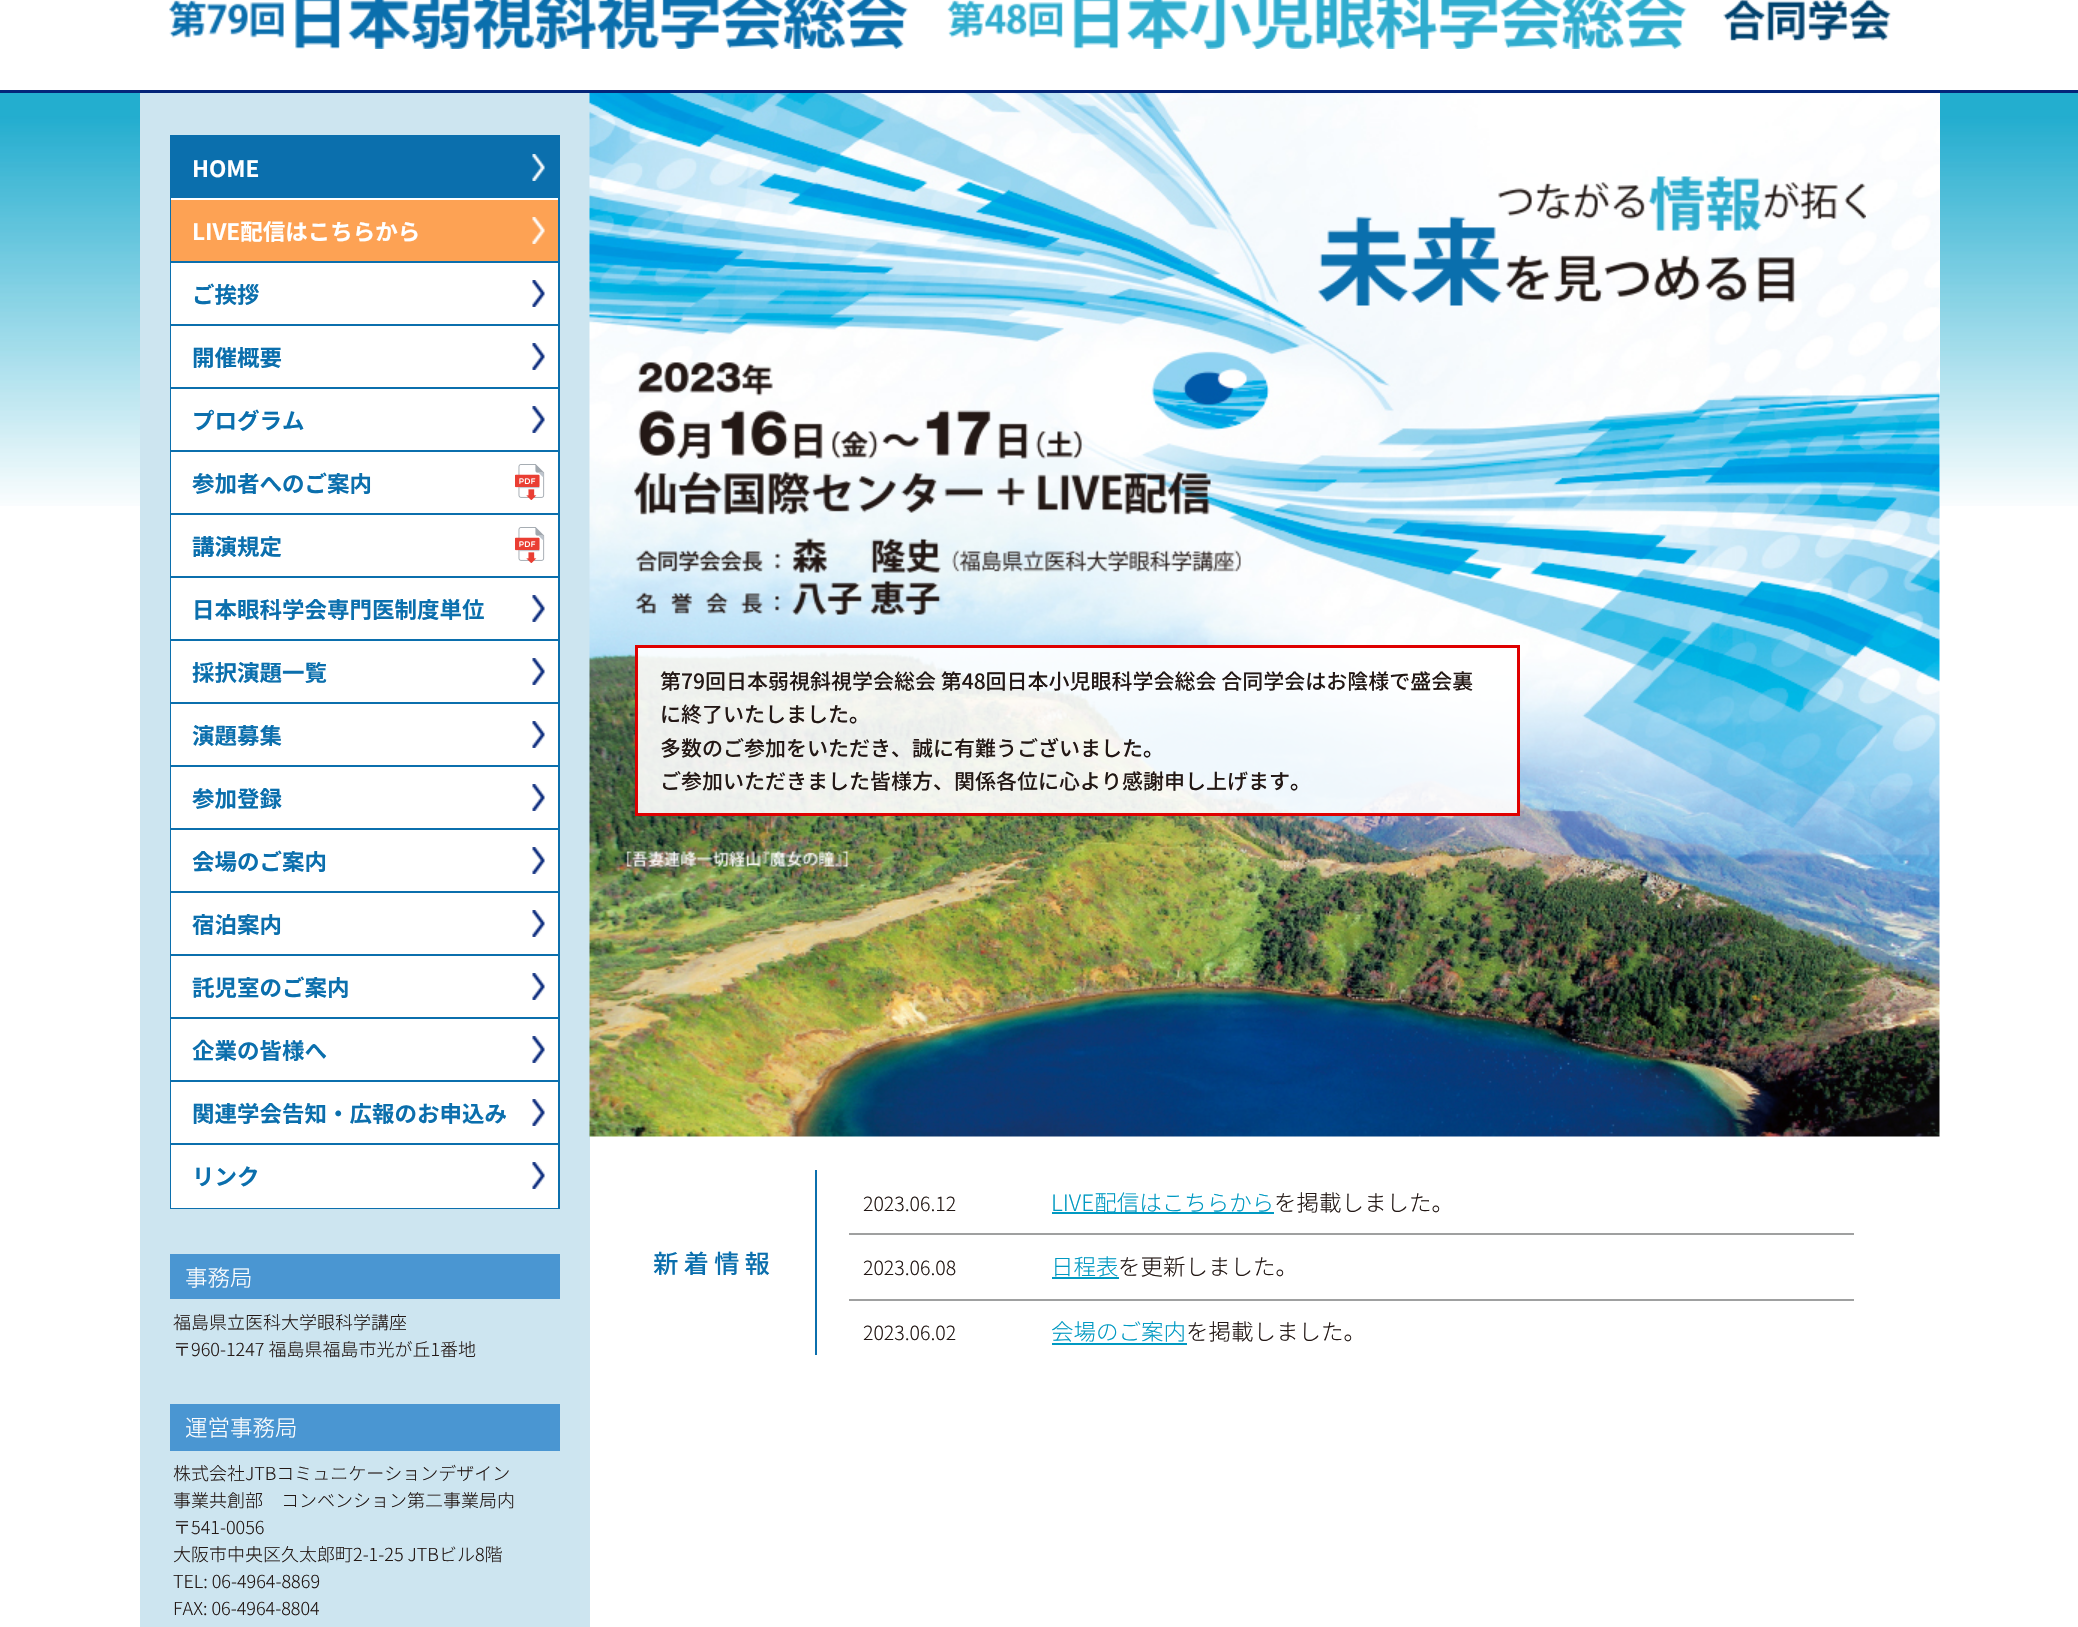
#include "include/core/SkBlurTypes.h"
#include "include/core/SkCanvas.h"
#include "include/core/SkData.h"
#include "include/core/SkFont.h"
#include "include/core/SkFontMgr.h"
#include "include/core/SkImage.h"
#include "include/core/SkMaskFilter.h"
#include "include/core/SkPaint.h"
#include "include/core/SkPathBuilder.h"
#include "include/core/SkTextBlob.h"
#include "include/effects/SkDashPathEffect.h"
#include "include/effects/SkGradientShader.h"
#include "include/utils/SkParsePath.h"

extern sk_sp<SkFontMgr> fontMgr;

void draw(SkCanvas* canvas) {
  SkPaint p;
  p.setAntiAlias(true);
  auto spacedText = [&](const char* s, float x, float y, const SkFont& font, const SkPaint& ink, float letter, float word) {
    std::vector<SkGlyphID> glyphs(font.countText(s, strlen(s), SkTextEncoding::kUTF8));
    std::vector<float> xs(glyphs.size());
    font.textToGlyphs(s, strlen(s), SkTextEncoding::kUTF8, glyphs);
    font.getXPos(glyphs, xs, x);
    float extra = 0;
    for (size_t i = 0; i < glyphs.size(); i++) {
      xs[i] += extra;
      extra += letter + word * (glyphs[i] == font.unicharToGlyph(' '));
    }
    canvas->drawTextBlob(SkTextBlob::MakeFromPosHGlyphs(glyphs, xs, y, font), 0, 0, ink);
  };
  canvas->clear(SK_ColorWHITE);
  p.setColor(SkColorSetRGB(4, 37, 121));
  canvas->drawRect(SkRect::MakeLTRB(0, 90, 2078, 93), p);
  canvas->drawImageRect(SkImages::DeferredFromEncodedData(SkData::MakeFromFileName("images/1.png")), SkRect::MakeLTRB(169, 0, 1891, 49), SkSamplingOptions());
  canvas->drawImageRect(SkImages::DeferredFromEncodedData(SkData::MakeFromFileName("images/2.png")), SkRect::MakeLTRB(0, 93, 2078, 506), SkSamplingOptions());
  p.setColor(SkColorSetRGB(205, 229, 240));
  canvas->drawRect(SkRect::MakeLTRB(140, 93, 590, 1627), p);
  p.setStyle(SkPaint::kStroke_Style);
  p.setStrokeWidth(2);
  p.setColor(SkColorSetRGB(11, 111, 173));
  canvas->drawRect(SkRect::MakeLTRB(171, 136, 559, 1208), p);
  p.setStyle(SkPaint::kFill_Style);
  canvas->drawRect(SkRect::MakeLTRB(172, 137, 558, 198), p);
  p.setColor(SK_ColorWHITE);
  canvas->drawRect(SkRect::MakeLTRB(171, 198, 558, 200), p);
  canvas->drawImageRect(SkImages::DeferredFromEncodedData(SkData::MakeFromFileName("images/3.png")), SkRect::MakeLTRB(532, 154, 545, 181), SkSamplingOptions());
  p.setColor(SkColorSetRGB(253, 162, 84));
  canvas->drawRect(SkRect::MakeLTRB(171, 200, 558, 261), p);
  p.setColor(SkColorSetRGB(11, 111, 173));
  canvas->drawRect(SkRect::MakeLTRB(171, 261, 558, 263), p);
  canvas->drawImageRect(SkImages::DeferredFromEncodedData(SkData::MakeFromFileName("images/4.png")), SkRect::MakeLTRB(532, 217, 545, 244), SkSamplingOptions());
  p.setColor(SK_ColorWHITE);
  canvas->drawRect(SkRect::MakeLTRB(171, 263, 558, 324), p);
  p.setColor(SkColorSetRGB(11, 111, 173));
  canvas->drawRect(SkRect::MakeLTRB(171, 324, 558, 326), p);
  canvas->drawImageRect(SkImages::DeferredFromEncodedData(SkData::MakeFromFileName("images/5.png")), SkRect::MakeLTRB(532, 280, 545, 307), SkSamplingOptions());
  p.setColor(SK_ColorWHITE);
  canvas->drawRect(SkRect::MakeLTRB(171, 326, 558, 387), p);
  p.setColor(SkColorSetRGB(11, 111, 173));
  canvas->drawRect(SkRect::MakeLTRB(171, 387, 558, 389), p);
  canvas->drawImageRect(SkImages::DeferredFromEncodedData(SkData::MakeFromFileName("images/5.png")), SkRect::MakeLTRB(532, 343, 545, 370), SkSamplingOptions());
  p.setColor(SK_ColorWHITE);
  canvas->drawRect(SkRect::MakeLTRB(171, 389, 558, 450), p);
  p.setColor(SkColorSetRGB(11, 111, 173));
  canvas->drawRect(SkRect::MakeLTRB(171, 450, 558, 452), p);
  canvas->drawImageRect(SkImages::DeferredFromEncodedData(SkData::MakeFromFileName("images/5.png")), SkRect::MakeLTRB(532, 406, 545, 433), SkSamplingOptions());
  p.setColor(SK_ColorWHITE);
  canvas->drawRect(SkRect::MakeLTRB(171, 452, 558, 513), p);
  p.setColor(SkColorSetRGB(11, 111, 173));
  canvas->drawRect(SkRect::MakeLTRB(171, 513, 558, 515), p);
  canvas->drawImageRect(SkImages::DeferredFromEncodedData(SkData::MakeFromFileName("images/6.png")), SkRect::MakeLTRB(515, 464, 545, 500), SkSamplingOptions());
  p.setColor(SK_ColorWHITE);
  canvas->drawRect(SkRect::MakeLTRB(171, 515, 558, 576), p);
  p.setColor(SkColorSetRGB(11, 111, 173));
  canvas->drawRect(SkRect::MakeLTRB(171, 576, 558, 578), p);
  canvas->drawImageRect(SkImages::DeferredFromEncodedData(SkData::MakeFromFileName("images/6.png")), SkRect::MakeLTRB(515, 527, 545, 563), SkSamplingOptions());
  p.setColor(SK_ColorWHITE);
  canvas->drawRect(SkRect::MakeLTRB(171, 578, 558, 639), p);
  p.setColor(SkColorSetRGB(11, 111, 173));
  canvas->drawRect(SkRect::MakeLTRB(171, 639, 558, 641), p);
  canvas->drawImageRect(SkImages::DeferredFromEncodedData(SkData::MakeFromFileName("images/5.png")), SkRect::MakeLTRB(532, 595, 545, 622), SkSamplingOptions());
  p.setColor(SK_ColorWHITE);
  canvas->drawRect(SkRect::MakeLTRB(171, 641, 558, 702), p);
  p.setColor(SkColorSetRGB(11, 111, 173));
  canvas->drawRect(SkRect::MakeLTRB(171, 702, 558, 704), p);
  canvas->drawImageRect(SkImages::DeferredFromEncodedData(SkData::MakeFromFileName("images/5.png")), SkRect::MakeLTRB(532, 658, 545, 685), SkSamplingOptions());
  p.setColor(SK_ColorWHITE);
  canvas->drawRect(SkRect::MakeLTRB(171, 704, 558, 765), p);
  p.setColor(SkColorSetRGB(11, 111, 173));
  canvas->drawRect(SkRect::MakeLTRB(171, 765, 558, 767), p);
  canvas->drawImageRect(SkImages::DeferredFromEncodedData(SkData::MakeFromFileName("images/5.png")), SkRect::MakeLTRB(532, 721, 545, 748), SkSamplingOptions());
  p.setColor(SK_ColorWHITE);
  canvas->drawRect(SkRect::MakeLTRB(171, 767, 558, 828), p);
  p.setColor(SkColorSetRGB(11, 111, 173));
  canvas->drawRect(SkRect::MakeLTRB(171, 828, 558, 830), p);
  canvas->drawImageRect(SkImages::DeferredFromEncodedData(SkData::MakeFromFileName("images/5.png")), SkRect::MakeLTRB(532, 784, 545, 811), SkSamplingOptions());
  p.setColor(SK_ColorWHITE);
  canvas->drawRect(SkRect::MakeLTRB(171, 830, 558, 891), p);
  p.setColor(SkColorSetRGB(11, 111, 173));
  canvas->drawRect(SkRect::MakeLTRB(171, 891, 558, 893), p);
  canvas->drawImageRect(SkImages::DeferredFromEncodedData(SkData::MakeFromFileName("images/5.png")), SkRect::MakeLTRB(532, 847, 545, 874), SkSamplingOptions());
  p.setColor(SK_ColorWHITE);
  canvas->drawRect(SkRect::MakeLTRB(171, 893, 558, 954), p);
  p.setColor(SkColorSetRGB(11, 111, 173));
  canvas->drawRect(SkRect::MakeLTRB(171, 954, 558, 956), p);
  canvas->drawImageRect(SkImages::DeferredFromEncodedData(SkData::MakeFromFileName("images/5.png")), SkRect::MakeLTRB(532, 910, 545, 937), SkSamplingOptions());
  p.setColor(SK_ColorWHITE);
  canvas->drawRect(SkRect::MakeLTRB(171, 956, 558, 1017), p);
  p.setColor(SkColorSetRGB(11, 111, 173));
  canvas->drawRect(SkRect::MakeLTRB(171, 1017, 558, 1019), p);
  canvas->drawImageRect(SkImages::DeferredFromEncodedData(SkData::MakeFromFileName("images/5.png")), SkRect::MakeLTRB(532, 973, 545, 1000), SkSamplingOptions());
  p.setColor(SK_ColorWHITE);
  canvas->drawRect(SkRect::MakeLTRB(171, 1019, 558, 1080), p);
  p.setColor(SkColorSetRGB(11, 111, 173));
  canvas->drawRect(SkRect::MakeLTRB(171, 1080, 558, 1082), p);
  canvas->drawImageRect(SkImages::DeferredFromEncodedData(SkData::MakeFromFileName("images/5.png")), SkRect::MakeLTRB(532, 1036, 545, 1063), SkSamplingOptions());
  p.setColor(SK_ColorWHITE);
  canvas->drawRect(SkRect::MakeLTRB(171, 1082, 558, 1143), p);
  p.setColor(SkColorSetRGB(11, 111, 173));
  canvas->drawRect(SkRect::MakeLTRB(171, 1143, 558, 1145), p);
  canvas->drawImageRect(SkImages::DeferredFromEncodedData(SkData::MakeFromFileName("images/5.png")), SkRect::MakeLTRB(532, 1099, 545, 1126), SkSamplingOptions());
  p.setColor(SK_ColorWHITE);
  canvas->drawRect(SkRect::MakeLTRB(171, 1145, 558, 1208), p);
  canvas->drawImageRect(SkImages::DeferredFromEncodedData(SkData::MakeFromFileName("images/5.png")), SkRect::MakeLTRB(532, 1162, 545, 1189), SkSamplingOptions());
  p.setColor(SkColorSetRGB(74, 150, 210));
  canvas->drawRect(SkRect::MakeLTRB(170, 1254, 560, 1299), p);
  canvas->drawRect(SkRect::MakeLTRB(170, 1404, 560, 1451), p);
  p.setColor(SK_ColorWHITE);
  canvas->drawRect(SkRect::MakeLTRB(590, 93, 1940, 506), p);
  canvas->drawImageRect(SkImages::DeferredFromEncodedData(SkData::MakeFromFileName("images/7.png")), SkRect::MakeLTRB(589, 93, 1940, 1137), SkSamplingOptions());
  canvas->drawImageRect(SkImages::DeferredFromEncodedData(SkData::MakeFromFileName("images/8.png")), SkRect::MakeLTRB(1318, 176, 1866, 306), SkSamplingOptions());
  canvas->drawImageRect(SkImages::DeferredFromEncodedData(SkData::MakeFromFileName("images/9.png")), SkRect::MakeLTRB(634, 362, 1241, 615), SkSamplingOptions());
  p.setColor(SkColorSetARGB(230, 255, 255, 255));
  canvas->drawRect(SkRect::MakeLTRB(636.5f, 646.5f, 1518.5f, 814.5f), p);
  p.setStyle(SkPaint::kStroke_Style);
  p.setStrokeWidth(3);
  p.setColor(SkColorSetRGB(223, 0, 0));
  canvas->drawRect(SkRect::MakeLTRB(636.5f, 646.5f, 1518.5f, 814.5f), p);
  canvas->drawImageRect(SkImages::DeferredFromEncodedData(SkData::MakeFromFileName("images/10.png")), SkRect::MakeLTRB(626, 851, 848, 867), SkSamplingOptions());
  p.setStyle(SkPaint::kFill_Style);
  p.setColor(SkColorSetRGB(11, 111, 173));
  canvas->drawRect(SkRect::MakeLTRB(815, 1170, 817, 1355), p);
  p.setColor(SkColorSetRGB(159, 160, 160));
  canvas->drawRect(SkRect::MakeLTRB(849, 1233, 1854, 1235), p);
  p.setColor(SkColorSetRGB(0, 153, 194));
  canvas->drawRect(SkRect::MakeLTRB(1052, 1212, 1274, 1214), p);
  p.setColor(SkColorSetRGB(159, 160, 160));
  canvas->drawRect(SkRect::MakeLTRB(849, 1299, 1854, 1301), p);
  p.setColor(SkColorSetRGB(0, 153, 194));
  canvas->drawRect(SkRect::MakeLTRB(1052, 1277, 1119, 1279), p);
  canvas->drawRect(SkRect::MakeLTRB(1052, 1343, 1187, 1345), p);
  SkFont font1(fontMgr->matchFamilyStyle("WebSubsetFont", SkFontStyle::Bold()), 22.5f);
  font1.setSubpixel(true);
  p.setColor(SK_ColorWHITE);
  canvas->drawString("HOME", 192, 177, font1, p);
  canvas->drawString("LIVE配信はこちらから", 192, 240, font1, p);
  p.setColor(SkColorSetRGB(11, 111, 173));
  canvas->drawString("ご挨拶", 192, 303, font1, p);
  canvas->drawString("開催概要", 192, 366, font1, p);
  canvas->drawString("プログラム", 192, 429, font1, p);
  canvas->drawString("参加者へのご案内", 192, 492, font1, p);
  canvas->drawString("講演規定", 192, 555, font1, p);
  canvas->drawString("日本眼科学会専門医制度単位", 192, 618, font1, p);
  canvas->drawString("採択演題一覧", 192, 681, font1, p);
  canvas->drawString("演題募集", 192, 744, font1, p);
  canvas->drawString("参加登録", 192, 807, font1, p);
  canvas->drawString("会場のご案内", 192, 870, font1, p);
  canvas->drawString("宿泊案内", 192, 933, font1, p);
  canvas->drawString("託児室のご案内", 192, 996, font1, p);
  canvas->drawString("企業の皆様へ", 192, 1059, font1, p);
  canvas->drawString("関連学会告知・広報のお申込み", 192, 1122, font1, p);
  canvas->drawString("リンク", 192, 1185, font1, p);
  SkFont font2(fontMgr->matchFamilyStyle("WebSubsetFont", SkFontStyle(300, SkFontStyle::kNormal_Width, SkFontStyle::kUpright_Slant)), 22.5f);
  font2.setSubpixel(true);
  p.setColor(SK_ColorWHITE);
  canvas->drawString("事務局", 185, 1286, font2, p);
  SkFont font3(fontMgr->matchFamilyStyle("WebSubsetFont", SkFontStyle(300, SkFontStyle::kNormal_Width, SkFontStyle::kUpright_Slant)), 18);
  font3.setSubpixel(true);
  p.setColor(SkColorSetRGB(35, 24, 21));
  canvas->drawString("福島県立医科大学眼科学講座", 173, 1329, font3, p);
  canvas->drawString("〒960-1247 福島県福島市光が丘1番地", 173, 1356, font3, p);
  p.setColor(SK_ColorWHITE);
  canvas->drawString("運営事務局", 185, 1436, font2, p);
  p.setColor(SkColorSetRGB(35, 24, 21));
  canvas->drawString("株式会社JTBコミュニケーションデザイン", 173, 1480, font3, p);
  canvas->drawString("事業共創部　コンベンション第二事業局内", 173, 1507, font3, p);
  canvas->drawString("〒541-0056", 173, 1534, font3, p);
  canvas->drawString("大阪市中央区久太郎町2-1-25 JTBビル8階", 173, 1561, font3, p);
  canvas->drawString("TEL: 06-4964-8869", 173, 1588, font3, p);
  canvas->drawString("FAX: 06-4964-8804", 173, 1615, font3, p);
  SkFont font4(fontMgr->matchFamilyStyle("WebSubsetFont", SkFontStyle(500, SkFontStyle::kNormal_Width, SkFontStyle::kUpright_Slant)), 21);
  font4.setSubpixel(true);
  canvas->drawString("第79回日本弱視斜視学会総会 第48回日本小児眼科学会総会 合同学会はお陰様で盛会裏", 660, 689, font4, p);
  canvas->drawString("に終了いたしました。", 660, 722, font4, p);
  canvas->drawString("多数のご参加をいただき、誠に有難うございました。", 660, 756, font4, p);
  canvas->drawString("ご参加いただきました皆様方、関係各位に心より感謝申し上げます。", 660, 789, font4, p);
  SkFont font5(fontMgr->matchFamilyStyle("WebSubsetFont", SkFontStyle(500, SkFontStyle::kNormal_Width, SkFontStyle::kUpright_Slant)), 25.5f);
  font5.setSubpixel(true);
  p.setColor(SkColorSetRGB(11, 111, 173));
  spacedText("新着情報", 653, 1273, font5, p, 5, 0);
  SkFont font6(fontMgr->matchFamilyStyle("WebSubsetFont", SkFontStyle(300, SkFontStyle::kNormal_Width, SkFontStyle::kUpright_Slant)), 19.5f);
  font6.setSubpixel(true);
  p.setColor(SkColorSetRGB(35, 24, 21));
  canvas->drawString("2023.06.12", 863, 1211, font6, p);
  p.setColor(SkColorSetRGB(0, 153, 194));
  canvas->drawString("LIVE配信はこちらから", 1051, 1211, font2, p);
  p.setColor(SkColorSetRGB(35, 24, 21));
  canvas->drawString("を掲載しました。", 1274, 1211, font2, p);
  canvas->drawString("2023.06.08", 863, 1275, font6, p);
  p.setColor(SkColorSetRGB(0, 153, 194));
  canvas->drawString("日程表", 1051, 1275, font2, p);
  p.setColor(SkColorSetRGB(35, 24, 21));
  canvas->drawString("を更新しました。", 1118, 1275, font2, p);
  canvas->drawString("2023.06.02", 863, 1340, font6, p);
  p.setColor(SkColorSetRGB(0, 153, 194));
  canvas->drawString("会場のご案内", 1051, 1340, font2, p);
  p.setColor(SkColorSetRGB(35, 24, 21));
  canvas->drawString("を掲載しました。", 1186, 1340, font2, p);
}
